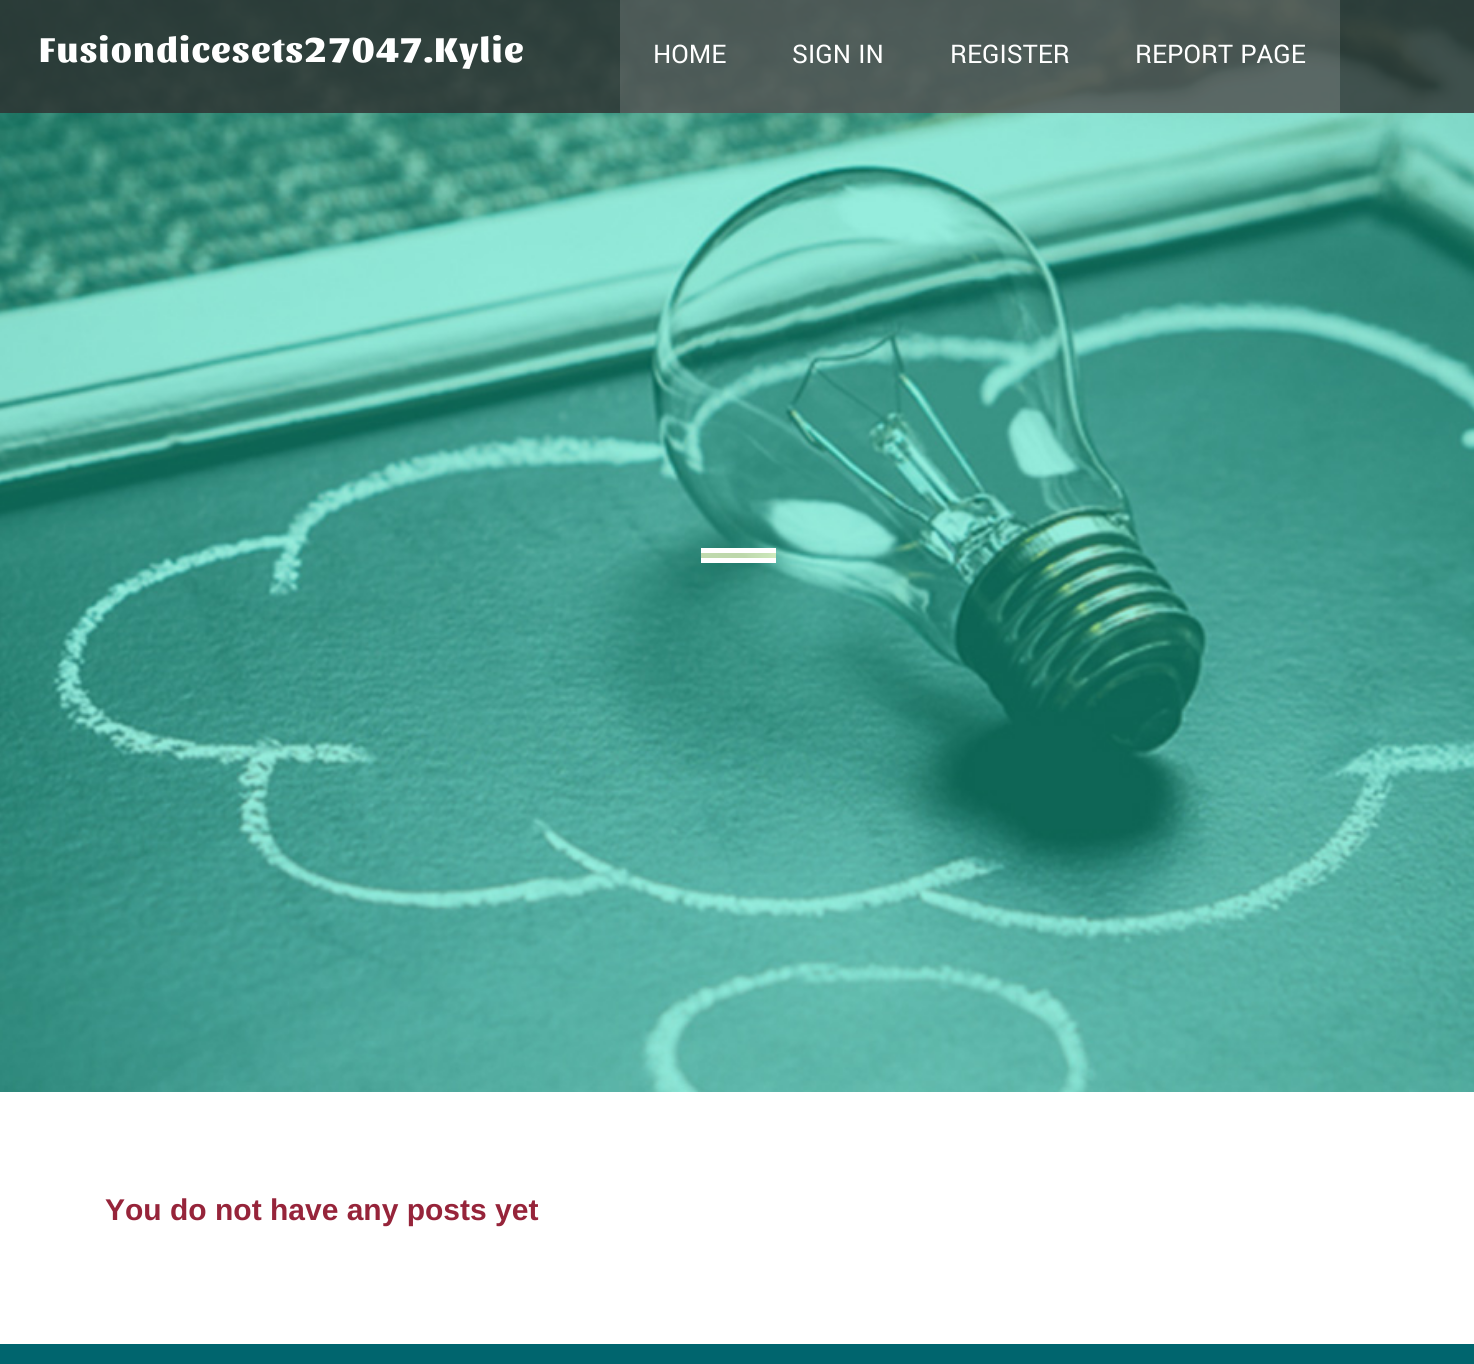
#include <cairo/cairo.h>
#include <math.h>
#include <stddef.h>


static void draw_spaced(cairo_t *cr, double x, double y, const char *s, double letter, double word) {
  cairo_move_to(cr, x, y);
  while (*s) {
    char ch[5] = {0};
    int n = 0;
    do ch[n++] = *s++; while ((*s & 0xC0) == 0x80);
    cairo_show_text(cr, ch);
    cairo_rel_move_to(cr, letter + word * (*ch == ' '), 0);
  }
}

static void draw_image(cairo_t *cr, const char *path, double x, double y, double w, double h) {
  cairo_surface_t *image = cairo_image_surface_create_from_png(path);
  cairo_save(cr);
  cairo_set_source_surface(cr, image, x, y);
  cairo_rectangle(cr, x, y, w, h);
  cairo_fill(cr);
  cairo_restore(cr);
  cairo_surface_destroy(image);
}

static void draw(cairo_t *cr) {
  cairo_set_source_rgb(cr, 1, 1, 1);
  cairo_paint(cr);
  draw_image(cr, "images/1.png", 0, 0, 1474, 1092);
  cairo_set_source_rgba(cr, 47 / 255.0, 47 / 255.0, 47 / 255.0, 0.8);
  cairo_rectangle(cr, 0, 0, 1474, 113);
  cairo_fill(cr);
  cairo_set_source_rgba(cr, 199 / 255.0, 199 / 255.0, 199 / 255.0, 0.2);
  cairo_rectangle(cr, 620, 0, 139, 113);
  cairo_fill(cr);
  cairo_rectangle(cr, 759, 0, 158, 113);
  cairo_fill(cr);
  cairo_rectangle(cr, 917, 0, 186, 113);
  cairo_fill(cr);
  cairo_rectangle(cr, 1103, 0, 237, 113);
  cairo_fill(cr);
  cairo_set_source_rgba(cr, 1, 1, 199 / 255.0, 0.7);
  cairo_rectangle(cr, 701, 553, 75, 5);
  cairo_fill(cr);
  cairo_set_source_rgb(cr, 1, 1, 1);
  cairo_rectangle(cr, 701, 548, 75, 5);
  cairo_fill(cr);
  cairo_rectangle(cr, 701, 558, 75, 5);
  cairo_fill(cr);
  cairo_set_source_rgb(cr, 0, 101 / 255.0, 110 / 255.0);
  cairo_rectangle(cr, 0, 1344, 1474, 20);
  cairo_fill(cr);
  cairo_select_font_face(cr, "Sansita ExtraBold", CAIRO_FONT_SLANT_NORMAL, CAIRO_FONT_WEIGHT_NORMAL);
  cairo_set_font_size(cr, 36);
  cairo_set_source_rgb(cr, 1, 1, 1);
  draw_spaced(cr, 39, 62, "Fusiondicesets27047.Kylie", 1.5, 0);
  cairo_select_font_face(cr, "Yantramanav", CAIRO_FONT_SLANT_NORMAL, CAIRO_FONT_WEIGHT_NORMAL);
  cairo_set_font_size(cr, 28.5);
  cairo_move_to(cr, 653, 63);
  cairo_show_text(cr, "HOME");
  cairo_move_to(cr, 792, 63);
  cairo_show_text(cr, "SIGN IN");
  cairo_move_to(cr, 950, 63);
  cairo_show_text(cr, "REGISTER");
  cairo_move_to(cr, 1135, 63);
  cairo_show_text(cr, "REPORT PAGE");
  cairo_select_font_face(cr, "Liberation Sans", CAIRO_FONT_SLANT_NORMAL, CAIRO_FONT_WEIGHT_BOLD);
  cairo_set_font_size(cr, 30);
  cairo_set_source_rgb(cr, 150 / 255.0, 36 / 255.0, 58 / 255.0);
  cairo_move_to(cr, 105, 1220);
  cairo_show_text(cr, "You do not have any posts yet");
}

int main(void) {
  cairo_surface_t *surface = cairo_image_surface_create(CAIRO_FORMAT_RGB24, 1474, 1364);
  cairo_t *cr = cairo_create(surface);
  cairo_font_options_t *options = cairo_font_options_create();
  cairo_font_options_set_hint_metrics(options, CAIRO_HINT_METRICS_OFF);
  cairo_font_options_set_hint_style(options, CAIRO_HINT_STYLE_NONE);
  cairo_set_font_options(cr, options);
  cairo_set_miter_limit(cr, 4);
  draw(cr);
  cairo_surface_write_to_png(surface, "out.png");
  cairo_font_options_destroy(options);
  cairo_destroy(cr);
  cairo_surface_destroy(surface);
  return 0;
}
